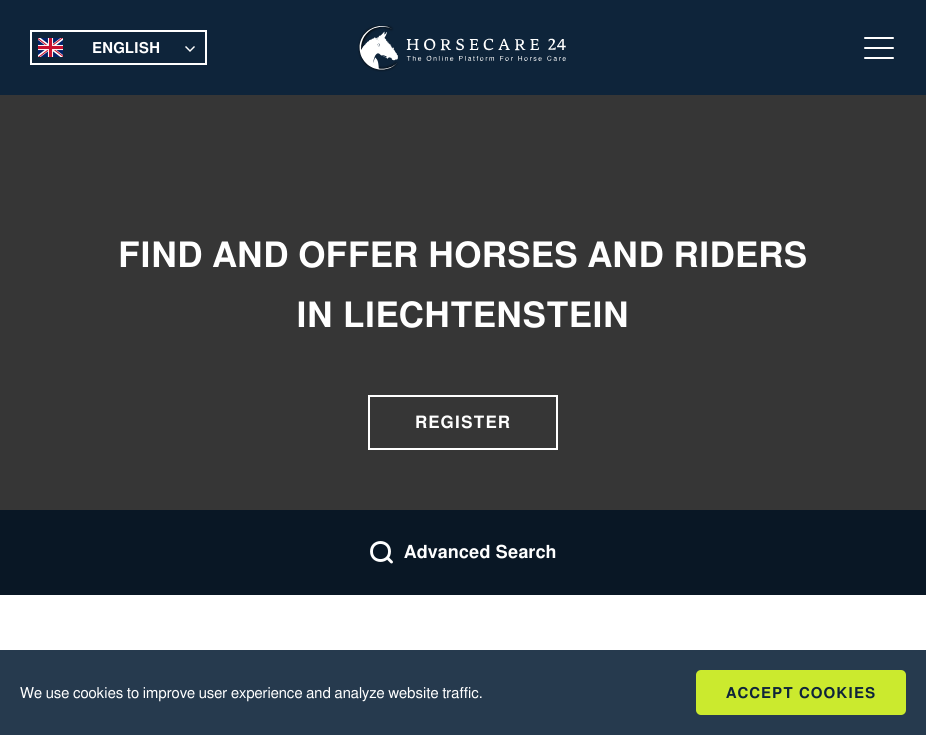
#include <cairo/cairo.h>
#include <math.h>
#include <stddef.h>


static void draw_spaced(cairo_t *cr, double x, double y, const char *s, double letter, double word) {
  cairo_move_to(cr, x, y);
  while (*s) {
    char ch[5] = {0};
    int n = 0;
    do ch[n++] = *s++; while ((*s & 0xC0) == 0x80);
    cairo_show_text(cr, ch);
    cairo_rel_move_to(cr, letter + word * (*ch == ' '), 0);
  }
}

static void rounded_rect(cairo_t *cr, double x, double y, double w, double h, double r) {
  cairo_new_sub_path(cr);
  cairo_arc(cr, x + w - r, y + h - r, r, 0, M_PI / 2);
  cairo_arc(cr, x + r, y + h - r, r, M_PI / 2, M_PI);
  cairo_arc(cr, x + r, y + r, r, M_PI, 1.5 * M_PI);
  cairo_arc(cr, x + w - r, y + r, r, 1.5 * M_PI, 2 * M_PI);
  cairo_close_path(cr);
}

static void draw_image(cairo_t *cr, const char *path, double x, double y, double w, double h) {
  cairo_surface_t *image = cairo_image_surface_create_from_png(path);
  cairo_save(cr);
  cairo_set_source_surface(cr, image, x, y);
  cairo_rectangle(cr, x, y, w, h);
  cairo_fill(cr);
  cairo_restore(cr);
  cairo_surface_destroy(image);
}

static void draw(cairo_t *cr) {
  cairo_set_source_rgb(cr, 1, 1, 1);
  cairo_paint(cr);
  cairo_set_source_rgb(cr, 38 / 255.0, 58 / 255.0, 78 / 255.0);
  cairo_rectangle(cr, 0, 650, 926, 85);
  cairo_fill(cr);
  cairo_set_source_rgb(cr, 14 / 255.0, 36 / 255.0, 58 / 255.0);
  cairo_rectangle(cr, 0, 0, 926, 95);
  cairo_fill(cr);
  draw_image(cr, "images/1.png", 185, 46, 10, 6);
  draw_image(cr, "images/2.png", 38, 38, 25, 19);
  cairo_rectangle(cr, 31, 31, 175, 33);
  cairo_set_source_rgb(cr, 1, 1, 1);
  cairo_stroke(cr);
  draw_image(cr, "images/3.png", 358, 25, 208, 47);
  cairo_new_path(cr);
  cairo_move_to(cr, 865, 38);
  cairo_line_to(cr, 893, 38);
  cairo_move_to(cr, 865, 48);
  cairo_line_to(cr, 893, 48);
  cairo_move_to(cr, 865, 58);
  cairo_line_to(cr, 893, 58);
  cairo_set_line_cap(cr, CAIRO_LINE_CAP_ROUND);
  cairo_stroke(cr);
  cairo_set_source_rgb(cr, 54 / 255.0, 54 / 255.0, 54 / 255.0);
  cairo_rectangle(cr, 0, 95, 926, 415);
  cairo_fill(cr);
  cairo_rectangle(cr, 369, 396, 188, 53);
  cairo_set_source_rgb(cr, 1, 1, 1);
  cairo_set_line_cap(cr, CAIRO_LINE_CAP_BUTT);
  cairo_stroke(cr);
  cairo_set_source_rgb(cr, 9 / 255.0, 23 / 255.0, 37 / 255.0);
  cairo_rectangle(cr, 0, 510, 926, 85);
  cairo_fill(cr);
  cairo_new_path(cr);
  cairo_move_to(cr, 389.5, 551.5);
  cairo_curve_to(cr, 389.5, 563.5, 371.5, 563.5, 371.5, 551.5);
  cairo_curve_to(cr, 371.5, 539.5, 389.5, 539.5, 389.5, 551.5);
  cairo_close_path(cr);
  cairo_move_to(cr, 391.5, 562);
  cairo_line_to(cr, 386.5, 557);
  cairo_line_to(cr, 391.5, 562);
  cairo_set_source_rgb(cr, 1, 1, 1);
  cairo_set_line_width(cr, 2.9);
  cairo_set_line_cap(cr, CAIRO_LINE_CAP_ROUND);
  cairo_stroke(cr);
  cairo_set_source_rgb(cr, 203 / 255.0, 234 / 255.0, 46 / 255.0);
  rounded_rect(cr, 696, 670, 210, 45, 5);
  cairo_fill(cr);
  cairo_select_font_face(cr, "FreeSans", CAIRO_FONT_SLANT_NORMAL, CAIRO_FONT_WEIGHT_BOLD);
  cairo_set_font_size(cr, 15);
  cairo_set_source_rgb(cr, 1, 1, 1);
  cairo_move_to(cr, 92, 53);
  cairo_show_text(cr, "ENGLISH");
  cairo_set_font_size(cr, 35);
  cairo_move_to(cr, 118, 267);
  cairo_show_text(cr, "FIND AND OFFER HORSES AND RIDERS");
  cairo_move_to(cr, 296, 327);
  cairo_show_text(cr, "IN LIECHTENSTEIN");
  cairo_set_font_size(cr, 17);
  draw_spaced(cr, 415, 428, "REGISTER", 1, 0);
  cairo_set_font_size(cr, 18);
  cairo_move_to(cr, 404, 558);
  cairo_show_text(cr, "Advanced Search");
  cairo_select_font_face(cr, "FreeSans", CAIRO_FONT_SLANT_NORMAL, CAIRO_FONT_WEIGHT_NORMAL);
  cairo_set_font_size(cr, 15);
  cairo_move_to(cr, 20, 698);
  cairo_show_text(cr, "We use cookies to improve user experience and analyze website traffic.");
  cairo_select_font_face(cr, "FreeSans", CAIRO_FONT_SLANT_NORMAL, CAIRO_FONT_WEIGHT_BOLD);
  cairo_set_source_rgb(cr, 14 / 255.0, 36 / 255.0, 58 / 255.0);
  draw_spaced(cr, 726, 698, "ACCEPT COOKIES", 1, 0);
}

int main(void) {
  cairo_surface_t *surface = cairo_image_surface_create(CAIRO_FORMAT_RGB24, 926, 735);
  cairo_t *cr = cairo_create(surface);
  cairo_font_options_t *options = cairo_font_options_create();
  cairo_font_options_set_hint_metrics(options, CAIRO_HINT_METRICS_OFF);
  cairo_font_options_set_hint_style(options, CAIRO_HINT_STYLE_NONE);
  cairo_set_font_options(cr, options);
  cairo_set_miter_limit(cr, 4);
  draw(cr);
  cairo_surface_write_to_png(surface, "out.png");
  cairo_font_options_destroy(options);
  cairo_destroy(cr);
  cairo_surface_destroy(surface);
  return 0;
}
